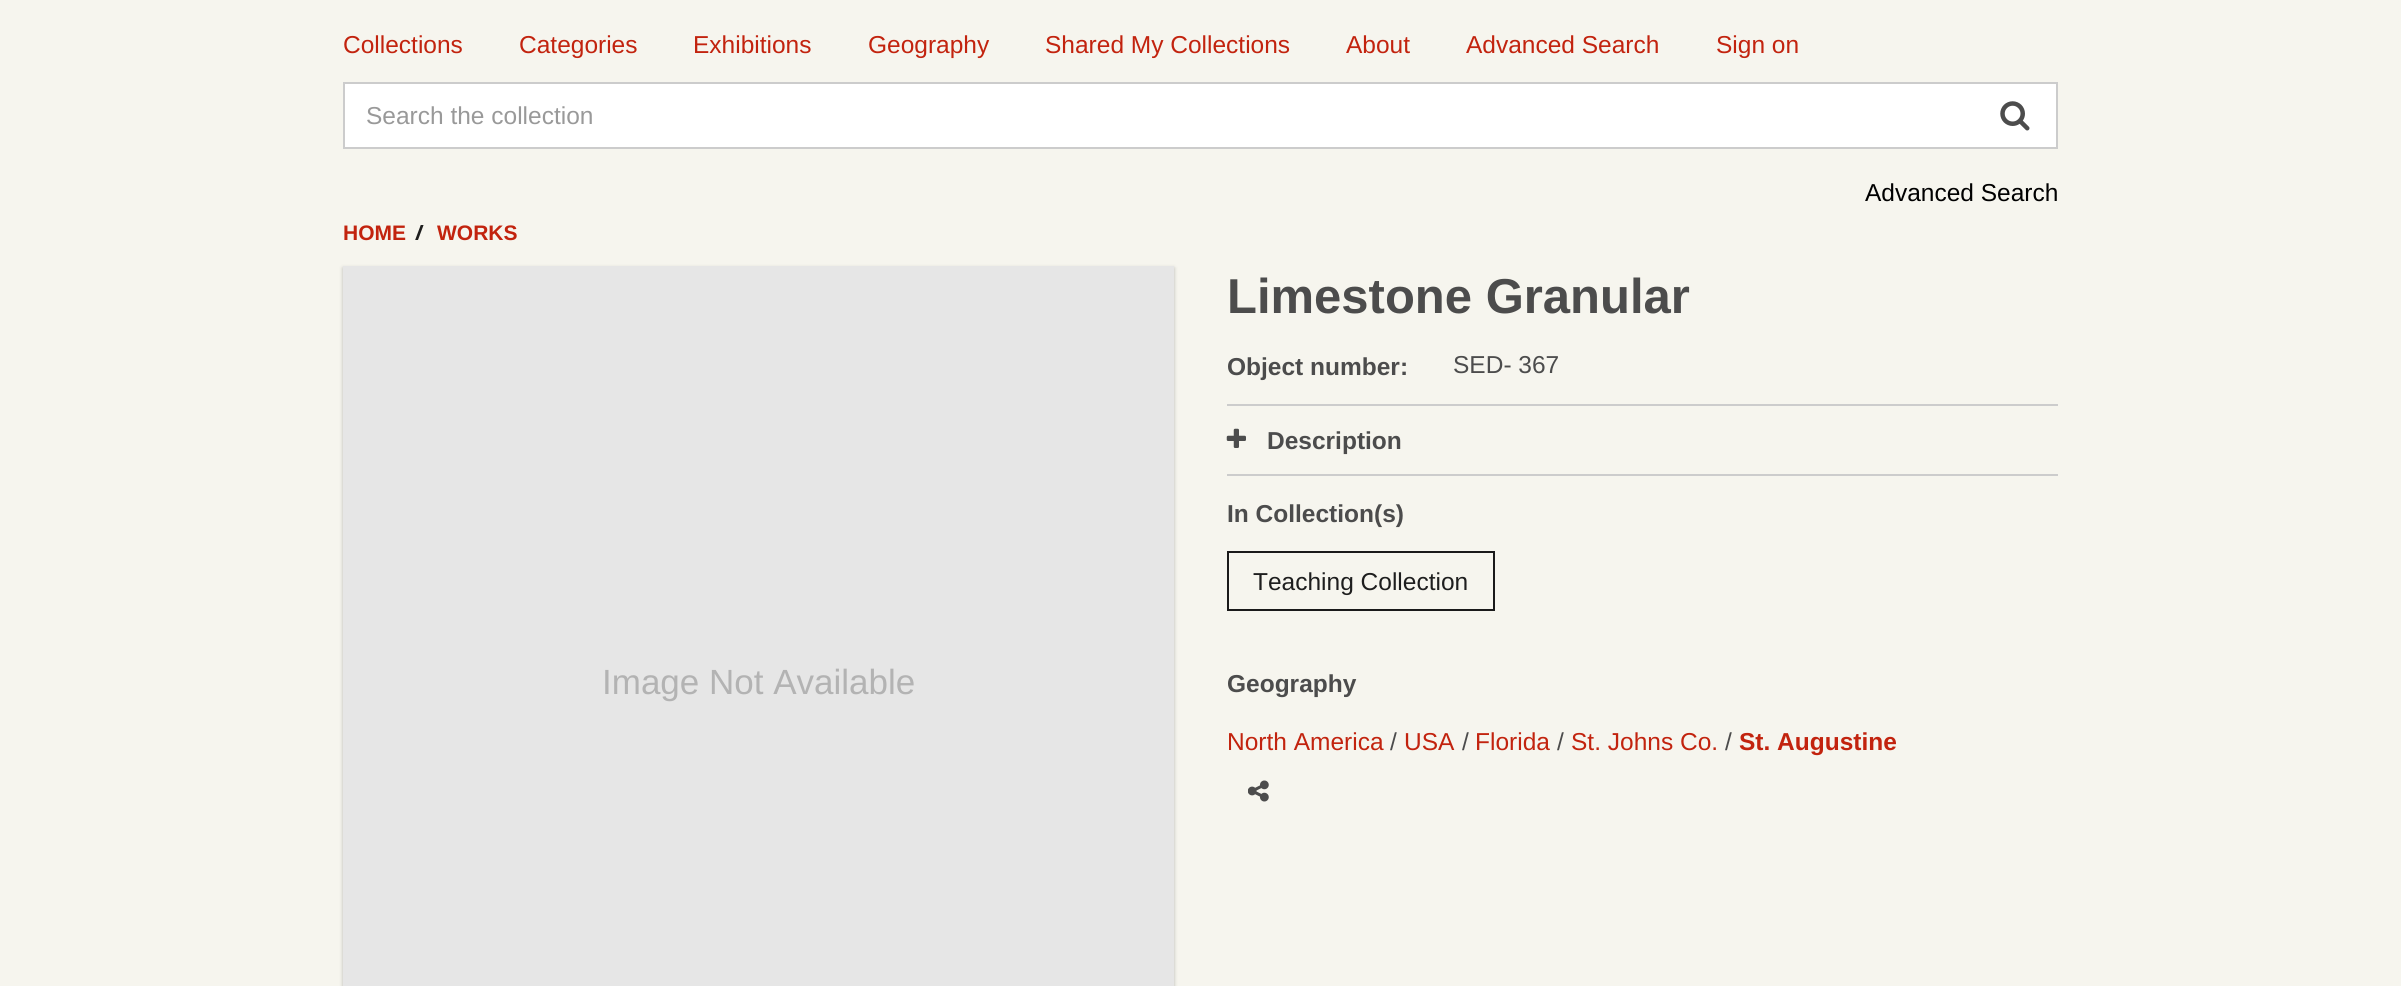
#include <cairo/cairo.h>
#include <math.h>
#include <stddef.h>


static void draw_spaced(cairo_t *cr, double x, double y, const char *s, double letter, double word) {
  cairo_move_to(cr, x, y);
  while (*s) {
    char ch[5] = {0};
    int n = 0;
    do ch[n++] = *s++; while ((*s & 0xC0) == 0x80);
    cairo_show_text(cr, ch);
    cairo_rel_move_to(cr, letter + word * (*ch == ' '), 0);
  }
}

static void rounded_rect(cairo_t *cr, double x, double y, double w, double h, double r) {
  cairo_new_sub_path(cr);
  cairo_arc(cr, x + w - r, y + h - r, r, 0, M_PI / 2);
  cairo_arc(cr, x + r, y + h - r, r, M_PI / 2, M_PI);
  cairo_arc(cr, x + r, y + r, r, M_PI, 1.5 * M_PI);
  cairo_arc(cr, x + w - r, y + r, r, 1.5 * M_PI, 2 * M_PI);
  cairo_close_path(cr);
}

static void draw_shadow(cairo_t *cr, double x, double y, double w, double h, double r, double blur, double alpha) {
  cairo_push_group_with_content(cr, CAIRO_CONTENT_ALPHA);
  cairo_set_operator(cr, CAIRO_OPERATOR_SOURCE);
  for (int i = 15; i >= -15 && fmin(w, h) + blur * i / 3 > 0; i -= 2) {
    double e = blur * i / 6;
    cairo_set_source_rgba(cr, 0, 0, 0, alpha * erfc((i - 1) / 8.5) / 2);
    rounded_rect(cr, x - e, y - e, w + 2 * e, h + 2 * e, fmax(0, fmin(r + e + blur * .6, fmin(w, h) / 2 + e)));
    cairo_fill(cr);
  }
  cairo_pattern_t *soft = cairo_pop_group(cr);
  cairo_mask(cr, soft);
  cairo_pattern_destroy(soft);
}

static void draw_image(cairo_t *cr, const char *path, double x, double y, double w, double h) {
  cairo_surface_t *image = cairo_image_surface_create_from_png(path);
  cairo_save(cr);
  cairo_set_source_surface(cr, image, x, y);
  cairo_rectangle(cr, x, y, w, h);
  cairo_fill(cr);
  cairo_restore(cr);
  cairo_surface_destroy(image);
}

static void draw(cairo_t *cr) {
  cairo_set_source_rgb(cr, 246 / 255.0, 245 / 255.0, 238 / 255.0);
  cairo_paint(cr);
  cairo_set_source_rgb(cr, 1, 1, 1);
  cairo_rectangle(cr, 344, 83, 1713, 65);
  cairo_fill_preserve(cr);
  cairo_set_source_rgb(cr, 204 / 255.0, 204 / 255.0, 204 / 255.0);
  cairo_stroke(cr);
  draw_image(cr, "images/1.png", 2000, 101, 30, 30);
  cairo_set_source_rgb(cr, 0, 0, 0);
  draw_shadow(cr, 343, 268, 831, 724, 0, 2, 0.25);
  cairo_set_source_rgb(cr, 230 / 255.0, 230 / 255.0, 230 / 255.0);
  cairo_rectangle(cr, 343, 266, 831, 720);
  cairo_fill(cr);
  cairo_set_source_rgb(cr, 204 / 255.0, 204 / 255.0, 204 / 255.0);
  cairo_rectangle(cr, 1227, 404, 831, 2);
  cairo_fill(cr);
  cairo_rectangle(cr, 1227, 474, 831, 2);
  cairo_fill(cr);
  draw_image(cr, "images/2.png", 1226, 428, 20, 20);
  cairo_rectangle(cr, 1228, 552, 266, 58);
  cairo_set_source_rgb(cr, 26 / 255.0, 26 / 255.0, 26 / 255.0);
  cairo_stroke(cr);
  draw_image(cr, "images/3.png", 1248, 780, 21, 22);
  cairo_select_font_face(cr, "Liberation Sans", CAIRO_FONT_SLANT_NORMAL, CAIRO_FONT_WEIGHT_NORMAL);
  cairo_set_font_size(cr, 24.5);
  cairo_set_source_rgb(cr, 194 / 255.0, 35 / 255.0, 14 / 255.0);
  cairo_move_to(cr, 343, 53);
  cairo_show_text(cr, "Collections");
  cairo_move_to(cr, 519, 53);
  cairo_show_text(cr, "Categories");
  cairo_move_to(cr, 693, 53);
  cairo_show_text(cr, "Exhibitions");
  cairo_move_to(cr, 868, 53);
  cairo_show_text(cr, "Geography");
  cairo_move_to(cr, 1045, 53);
  cairo_show_text(cr, "Shared My Collections");
  cairo_move_to(cr, 1346, 53);
  cairo_show_text(cr, "About");
  cairo_move_to(cr, 1466, 53);
  cairo_show_text(cr, "Advanced Search");
  cairo_move_to(cr, 1716, 53);
  cairo_show_text(cr, "Sign on");
  cairo_set_source_rgb(cr, 153 / 255.0, 153 / 255.0, 153 / 255.0);
  cairo_move_to(cr, 366, 124);
  cairo_show_text(cr, "Search the collection");
  cairo_set_source_rgb(cr, 0, 0, 0);
  cairo_move_to(cr, 1865, 201);
  cairo_show_text(cr, "Advanced Search");
  cairo_select_font_face(cr, "Liberation Sans", CAIRO_FONT_SLANT_NORMAL, CAIRO_FONT_WEIGHT_BOLD);
  cairo_set_font_size(cr, 21);
  cairo_set_source_rgb(cr, 194 / 255.0, 35 / 255.0, 14 / 255.0);
  cairo_move_to(cr, 343, 240);
  cairo_show_text(cr, "HOME");
  cairo_select_font_face(cr, "Open Sans", CAIRO_FONT_SLANT_NORMAL, CAIRO_FONT_WEIGHT_BOLD);
  cairo_set_source_rgb(cr, 30 / 255.0, 30 / 255.0, 30 / 255.0);
  draw_spaced(cr, 415, 240, "/", 2, 0);
  cairo_select_font_face(cr, "Liberation Sans", CAIRO_FONT_SLANT_NORMAL, CAIRO_FONT_WEIGHT_BOLD);
  cairo_set_source_rgb(cr, 194 / 255.0, 35 / 255.0, 14 / 255.0);
  cairo_move_to(cr, 437, 240);
  cairo_show_text(cr, "WORKS");
  cairo_select_font_face(cr, "Liberation Sans", CAIRO_FONT_SLANT_NORMAL, CAIRO_FONT_WEIGHT_NORMAL);
  cairo_set_font_size(cr, 35);
  cairo_set_source_rgb(cr, 179 / 255.0, 179 / 255.0, 179 / 255.0);
  cairo_move_to(cr, 602, 694);
  cairo_show_text(cr, "Image Not Available");
  cairo_select_font_face(cr, "Liberation Sans", CAIRO_FONT_SLANT_NORMAL, CAIRO_FONT_WEIGHT_BOLD);
  cairo_set_font_size(cr, 49);
  cairo_set_source_rgb(cr, 76 / 255.0, 76 / 255.0, 76 / 255.0);
  cairo_move_to(cr, 1227, 313);
  cairo_show_text(cr, "Limestone Granular");
  cairo_set_font_size(cr, 24.5);
  cairo_move_to(cr, 1227, 375);
  cairo_show_text(cr, "Object number:");
  cairo_select_font_face(cr, "Liberation Sans", CAIRO_FONT_SLANT_NORMAL, CAIRO_FONT_WEIGHT_NORMAL);
  cairo_move_to(cr, 1453, 373);
  cairo_show_text(cr, "SED- 367");
  cairo_select_font_face(cr, "Liberation Sans", CAIRO_FONT_SLANT_NORMAL, CAIRO_FONT_WEIGHT_BOLD);
  cairo_move_to(cr, 1267, 449);
  cairo_show_text(cr, "Description");
  cairo_move_to(cr, 1227, 522);
  cairo_show_text(cr, "In Collection(s)");
  cairo_select_font_face(cr, "Liberation Sans", CAIRO_FONT_SLANT_NORMAL, CAIRO_FONT_WEIGHT_NORMAL);
  cairo_set_source_rgb(cr, 30 / 255.0, 30 / 255.0, 30 / 255.0);
  cairo_move_to(cr, 1253, 590);
  cairo_show_text(cr, "Teaching Collection");
  cairo_select_font_face(cr, "Liberation Sans", CAIRO_FONT_SLANT_NORMAL, CAIRO_FONT_WEIGHT_BOLD);
  cairo_set_source_rgb(cr, 76 / 255.0, 76 / 255.0, 76 / 255.0);
  cairo_move_to(cr, 1227, 692);
  cairo_show_text(cr, "Geography");
  cairo_select_font_face(cr, "Liberation Sans", CAIRO_FONT_SLANT_NORMAL, CAIRO_FONT_WEIGHT_NORMAL);
  cairo_set_source_rgb(cr, 194 / 255.0, 35 / 255.0, 14 / 255.0);
  cairo_move_to(cr, 1227, 750);
  cairo_show_text(cr, "North America");
  cairo_set_source_rgb(cr, 76 / 255.0, 76 / 255.0, 76 / 255.0);
  cairo_move_to(cr, 1390, 750);
  cairo_show_text(cr, "/");
  cairo_set_source_rgb(cr, 194 / 255.0, 35 / 255.0, 14 / 255.0);
  cairo_move_to(cr, 1404, 750);
  cairo_show_text(cr, "USA");
  cairo_set_source_rgb(cr, 76 / 255.0, 76 / 255.0, 76 / 255.0);
  cairo_move_to(cr, 1462, 750);
  cairo_show_text(cr, "/");
  cairo_set_source_rgb(cr, 194 / 255.0, 35 / 255.0, 14 / 255.0);
  cairo_move_to(cr, 1475, 750);
  cairo_show_text(cr, "Florida");
  cairo_set_source_rgb(cr, 76 / 255.0, 76 / 255.0, 76 / 255.0);
  cairo_move_to(cr, 1557, 750);
  cairo_show_text(cr, "/");
  cairo_set_source_rgb(cr, 194 / 255.0, 35 / 255.0, 14 / 255.0);
  cairo_move_to(cr, 1571, 750);
  cairo_show_text(cr, "St. Johns Co.");
  cairo_set_source_rgb(cr, 76 / 255.0, 76 / 255.0, 76 / 255.0);
  cairo_move_to(cr, 1725, 750);
  cairo_show_text(cr, "/");
  cairo_select_font_face(cr, "Liberation Sans", CAIRO_FONT_SLANT_NORMAL, CAIRO_FONT_WEIGHT_BOLD);
  cairo_set_source_rgb(cr, 194 / 255.0, 35 / 255.0, 14 / 255.0);
  cairo_move_to(cr, 1739, 750);
  cairo_show_text(cr, "St. Augustine");
}

int main(void) {
  cairo_surface_t *surface = cairo_image_surface_create(CAIRO_FORMAT_RGB24, 2401, 986);
  cairo_t *cr = cairo_create(surface);
  cairo_font_options_t *options = cairo_font_options_create();
  cairo_font_options_set_hint_metrics(options, CAIRO_HINT_METRICS_OFF);
  cairo_font_options_set_hint_style(options, CAIRO_HINT_STYLE_NONE);
  cairo_set_font_options(cr, options);
  cairo_set_miter_limit(cr, 4);
  draw(cr);
  cairo_surface_write_to_png(surface, "out.png");
  cairo_font_options_destroy(options);
  cairo_destroy(cr);
  cairo_surface_destroy(surface);
  return 0;
}
